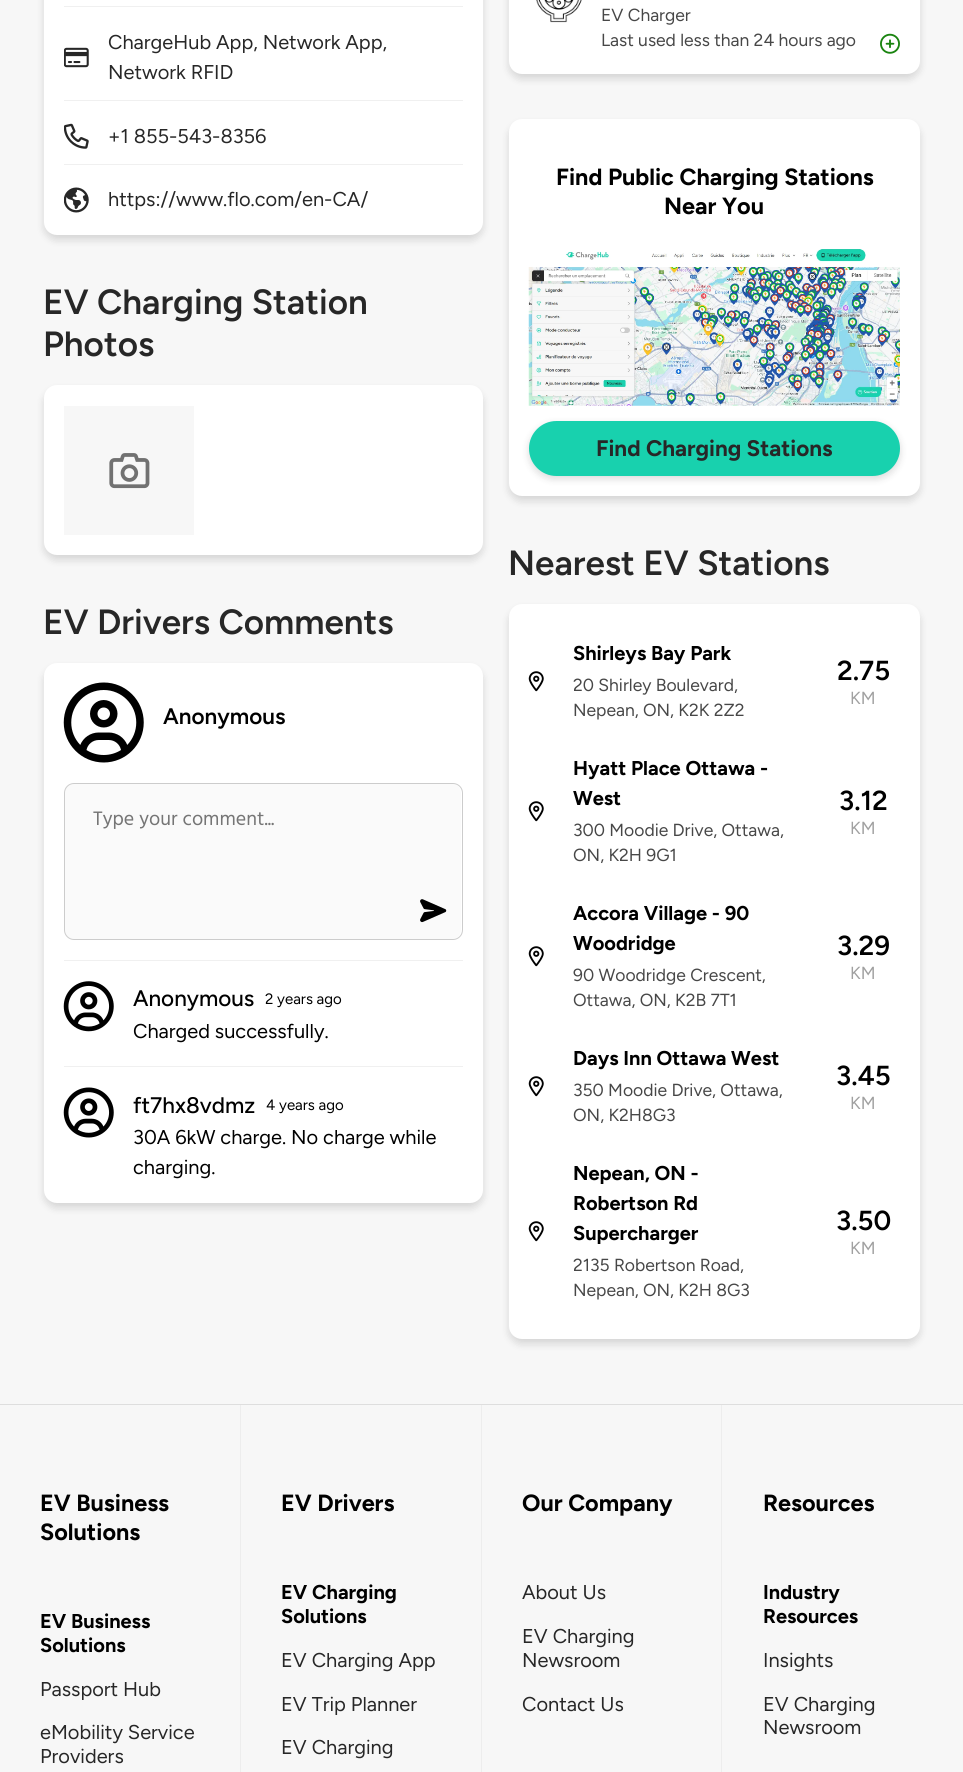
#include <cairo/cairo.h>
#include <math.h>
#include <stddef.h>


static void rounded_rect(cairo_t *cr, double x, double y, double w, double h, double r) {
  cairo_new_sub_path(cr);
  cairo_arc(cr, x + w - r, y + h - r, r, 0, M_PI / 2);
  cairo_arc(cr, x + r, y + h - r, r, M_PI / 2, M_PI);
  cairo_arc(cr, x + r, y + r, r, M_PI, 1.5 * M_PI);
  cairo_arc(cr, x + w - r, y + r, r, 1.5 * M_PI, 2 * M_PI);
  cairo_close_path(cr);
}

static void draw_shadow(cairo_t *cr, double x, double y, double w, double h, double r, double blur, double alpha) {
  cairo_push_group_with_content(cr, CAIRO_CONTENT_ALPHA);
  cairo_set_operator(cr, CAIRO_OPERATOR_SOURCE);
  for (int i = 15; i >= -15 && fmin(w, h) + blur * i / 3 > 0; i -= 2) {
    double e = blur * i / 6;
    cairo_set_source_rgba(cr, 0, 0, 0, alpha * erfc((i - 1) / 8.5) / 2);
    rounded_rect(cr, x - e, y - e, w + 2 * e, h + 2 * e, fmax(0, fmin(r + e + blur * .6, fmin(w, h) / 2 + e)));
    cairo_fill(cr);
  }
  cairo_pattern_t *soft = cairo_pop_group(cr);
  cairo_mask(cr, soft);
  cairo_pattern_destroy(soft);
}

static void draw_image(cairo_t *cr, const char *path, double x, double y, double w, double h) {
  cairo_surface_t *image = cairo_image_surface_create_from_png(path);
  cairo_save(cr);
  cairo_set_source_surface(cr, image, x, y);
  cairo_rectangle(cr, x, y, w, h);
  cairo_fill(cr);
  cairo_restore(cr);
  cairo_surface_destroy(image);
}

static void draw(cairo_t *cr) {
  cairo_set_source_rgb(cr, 247 / 255.0, 247 / 255.0, 247 / 255.0);
  cairo_paint(cr);
  cairo_set_source_rgb(cr, 36 / 255.0, 36 / 255.0, 36 / 255.0);
  draw_shadow(cr, 44, -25, 439, 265, 13, 4, 0.16);
  cairo_set_source_rgb(cr, 1, 1, 1);
  rounded_rect(cr, 44, -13, 439, 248, 13);
  cairo_fill(cr);
  cairo_set_source_rgb(cr, 240 / 255.0, 240 / 255.0, 240 / 255.0);
  cairo_rectangle(cr, 64, 6, 399, 1);
  cairo_fill(cr);
  cairo_rectangle(cr, 64, 100, 399, 1);
  cairo_fill(cr);
  draw_image(cr, "images/1.png", 64, 47, 25, 21);
  cairo_rectangle(cr, 64, 164, 399, 1);
  cairo_fill(cr);
  draw_image(cr, "images/2.png", 64, 123, 25, 26);
  draw_image(cr, "images/3.png", 64, 187, 25, 26);
  cairo_set_source_rgb(cr, 36 / 255.0, 36 / 255.0, 36 / 255.0);
  draw_shadow(cr, 44, 390, 439, 170, 13, 4, 0.16);
  cairo_set_source_rgb(cr, 1, 1, 1);
  rounded_rect(cr, 44, 385, 439, 170, 13);
  cairo_fill(cr);
  draw_image(cr, "images/4.png", 64, 406, 130, 129);
  cairo_set_source_rgb(cr, 36 / 255.0, 36 / 255.0, 36 / 255.0);
  draw_shadow(cr, 44, 668, 439, 540, 13, 4, 0.16);
  cairo_set_source_rgb(cr, 1, 1, 1);
  rounded_rect(cr, 44, 663, 439, 540, 13);
  cairo_fill(cr);
  cairo_set_source_rgb(cr, 240 / 255.0, 240 / 255.0, 240 / 255.0);
  cairo_rectangle(cr, 64, 960, 399, 1);
  cairo_fill(cr);
  draw_image(cr, "images/5.png", 63, 682, 81, 81);
  cairo_set_source_rgb(cr, 250 / 255.0, 250 / 255.0, 250 / 255.0);
  rounded_rect(cr, 65, 784, 396, 155, 9);
  cairo_fill(cr);
  rounded_rect(cr, 64.5, 783.5, 398, 156, 9.5);
  cairo_set_source_rgb(cr, 204 / 255.0, 204 / 255.0, 204 / 255.0);
  cairo_set_line_width(cr, 1);
  cairo_stroke(cr);
  draw_image(cr, "images/6.png", 420, 899, 27, 24);
  cairo_set_source_rgb(cr, 240 / 255.0, 240 / 255.0, 240 / 255.0);
  cairo_rectangle(cr, 64, 1066, 399, 1);
  cairo_fill(cr);
  draw_image(cr, "images/7.png", 63, 981, 51, 51);
  draw_image(cr, "images/8.png", 63, 1087, 51, 51);
  cairo_set_source_rgb(cr, 36 / 255.0, 36 / 255.0, 36 / 255.0);
  draw_shadow(cr, 509, -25, 411, 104, 13, 4, 0.16);
  cairo_set_source_rgb(cr, 1, 1, 1);
  rounded_rect(cr, 509, -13, 411, 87, 13);
  cairo_fill(cr);
  draw_image(cr, "images/9.png", 536, 0, 46, 23);
  draw_image(cr, "images/10.png", 880, 33, 20, 21);
  cairo_set_source_rgb(cr, 36 / 255.0, 36 / 255.0, 36 / 255.0);
  draw_shadow(cr, 509, 124, 411, 377, 13, 4, 0.16);
  cairo_set_source_rgb(cr, 1, 1, 1);
  rounded_rect(cr, 509, 119, 411, 377, 13);
  cairo_fill(cr);
  draw_image(cr, "images/11.png", 528, 249, 372, 157);
  cairo_set_source_rgb(cr, 27 / 255.0, 27 / 255.0, 27 / 255.0);
  draw_shadow(cr, 529, 424, 371, 55, 27.5, 4, 0.16);
  cairo_set_source_rgb(cr, 24 / 255.0, 209 / 255.0, 174 / 255.0);
  rounded_rect(cr, 529, 421, 371, 55, 27.5);
  cairo_fill(cr);
  cairo_set_source_rgb(cr, 36 / 255.0, 36 / 255.0, 36 / 255.0);
  draw_shadow(cr, 509, 609, 411, 735, 13, 4, 0.16);
  cairo_set_source_rgb(cr, 1, 1, 1);
  rounded_rect(cr, 509, 604, 411, 735, 13);
  cairo_fill(cr);
  draw_image(cr, "images/12.png", 528, 671, 16, 21);
  draw_image(cr, "images/12.png", 528, 801, 16, 21);
  draw_image(cr, "images/12.png", 528, 946, 16, 21);
  draw_image(cr, "images/12.png", 528, 1076, 16, 21);
  draw_image(cr, "images/12.png", 528, 1221, 16, 21);
  cairo_set_source_rgb(cr, 222 / 255.0, 222 / 255.0, 222 / 255.0);
  cairo_rectangle(cr, 0, 1404, 963, 1);
  cairo_fill(cr);
  cairo_set_source_rgb(cr, 237 / 255.0, 237 / 255.0, 237 / 255.0);
  cairo_rectangle(cr, 240, 1405, 1, 367);
  cairo_fill(cr);
  cairo_rectangle(cr, 481, 1405, 1, 367);
  cairo_fill(cr);
  cairo_rectangle(cr, 721, 1405, 1, 367);
  cairo_fill(cr);
  cairo_select_font_face(cr, "Figtree", CAIRO_FONT_SLANT_NORMAL, CAIRO_FONT_WEIGHT_NORMAL);
  cairo_set_font_size(cr, 20);
  cairo_set_source_rgb(cr, 39 / 255.0, 39 / 255.0, 39 / 255.0);
  cairo_move_to(cr, 108, 49);
  cairo_show_text(cr, "ChargeHub App, Network App,");
  cairo_move_to(cr, 108, 79);
  cairo_show_text(cr, "Network RFID");
  cairo_move_to(cr, 108, 143);
  cairo_show_text(cr, "+1 855-543-8356");
  cairo_move_to(cr, 108, 206);
  cairo_show_text(cr, "https://www.flo.com/en-CA/");
  cairo_select_font_face(cr, "Figtree SemiBold", CAIRO_FONT_SLANT_NORMAL, CAIRO_FONT_WEIGHT_NORMAL);
  cairo_set_font_size(cr, 35);
  cairo_move_to(cr, 43, 314);
  cairo_show_text(cr, "EV Charging Station");
  cairo_move_to(cr, 43, 356);
  cairo_show_text(cr, "Photos");
  cairo_move_to(cr, 43, 634);
  cairo_show_text(cr, "EV Drivers Comments");
  cairo_set_font_size(cr, 22.5);
  cairo_set_source_rgb(cr, 0, 0, 0);
  cairo_move_to(cr, 163, 724);
  cairo_show_text(cr, "Anonymous");
  cairo_select_font_face(cr, "Hind", CAIRO_FONT_SLANT_NORMAL, CAIRO_FONT_WEIGHT_NORMAL);
  cairo_set_font_size(cr, 20);
  cairo_set_source_rgb(cr, 117 / 255.0, 117 / 255.0, 117 / 255.0);
  cairo_move_to(cr, 93, 825);
  cairo_show_text(cr, "Type your comment...");
  cairo_select_font_face(cr, "Figtree Medium", CAIRO_FONT_SLANT_NORMAL, CAIRO_FONT_WEIGHT_NORMAL);
  cairo_set_font_size(cr, 22.5);
  cairo_set_source_rgb(cr, 0, 0, 0);
  cairo_move_to(cr, 133, 1006);
  cairo_show_text(cr, "Anonymous");
  cairo_select_font_face(cr, "Figtree", CAIRO_FONT_SLANT_NORMAL, CAIRO_FONT_WEIGHT_NORMAL);
  cairo_set_font_size(cr, 15);
  cairo_move_to(cr, 265, 1004);
  cairo_show_text(cr, "2 years ago");
  cairo_set_font_size(cr, 20);
  cairo_move_to(cr, 133, 1038);
  cairo_show_text(cr, "Charged successfully.");
  cairo_select_font_face(cr, "Figtree Medium", CAIRO_FONT_SLANT_NORMAL, CAIRO_FONT_WEIGHT_NORMAL);
  cairo_set_font_size(cr, 22.5);
  cairo_move_to(cr, 133, 1113);
  cairo_show_text(cr, "ft7hx8vdmz");
  cairo_select_font_face(cr, "Figtree", CAIRO_FONT_SLANT_NORMAL, CAIRO_FONT_WEIGHT_NORMAL);
  cairo_set_font_size(cr, 15);
  cairo_move_to(cr, 266, 1110);
  cairo_show_text(cr, "4 years ago");
  cairo_set_font_size(cr, 20);
  cairo_move_to(cr, 133, 1144);
  cairo_show_text(cr, "30A 6kW charge. No charge while");
  cairo_move_to(cr, 133, 1174);
  cairo_show_text(cr, "charging.");
  cairo_set_font_size(cr, 17.5);
  cairo_set_source_rgb(cr, 71 / 255.0, 71 / 255.0, 71 / 255.0);
  cairo_move_to(cr, 601, 21);
  cairo_show_text(cr, "EV Charger");
  cairo_move_to(cr, 601, 46);
  cairo_show_text(cr, "Last used less than 24 hours ago");
  cairo_select_font_face(cr, "Figtree", CAIRO_FONT_SLANT_NORMAL, CAIRO_FONT_WEIGHT_BOLD);
  cairo_set_font_size(cr, 23.4);
  cairo_set_source_rgb(cr, 0, 0, 0);
  cairo_move_to(cr, 556, 185);
  cairo_show_text(cr, "Find Public Charging Stations");
  cairo_move_to(cr, 664, 214);
  cairo_show_text(cr, "Near You");
  cairo_set_font_size(cr, 22.5);
  cairo_set_source_rgb(cr, 39 / 255.0, 39 / 255.0, 39 / 255.0);
  cairo_move_to(cr, 596, 456);
  cairo_show_text(cr, "Find Charging Stations");
  cairo_select_font_face(cr, "Figtree SemiBold", CAIRO_FONT_SLANT_NORMAL, CAIRO_FONT_WEIGHT_NORMAL);
  cairo_set_font_size(cr, 35);
  cairo_move_to(cr, 508, 575);
  cairo_show_text(cr, "Nearest EV Stations");
  cairo_select_font_face(cr, "Figtree", CAIRO_FONT_SLANT_NORMAL, CAIRO_FONT_WEIGHT_BOLD);
  cairo_set_font_size(cr, 20);
  cairo_set_source_rgb(cr, 0, 0, 0);
  cairo_move_to(cr, 573, 660);
  cairo_show_text(cr, "Shirleys Bay Park");
  cairo_select_font_face(cr, "Figtree", CAIRO_FONT_SLANT_NORMAL, CAIRO_FONT_WEIGHT_NORMAL);
  cairo_set_font_size(cr, 17.5);
  cairo_set_source_rgb(cr, 71 / 255.0, 71 / 255.0, 71 / 255.0);
  cairo_move_to(cr, 573, 691);
  cairo_show_text(cr, "20 Shirley Boulevard,");
  cairo_move_to(cr, 573, 716);
  cairo_show_text(cr, "Nepean, ON, K2K 2Z2");
  cairo_select_font_face(cr, "Figtree SemiBold", CAIRO_FONT_SLANT_NORMAL, CAIRO_FONT_WEIGHT_NORMAL);
  cairo_set_font_size(cr, 27.5);
  cairo_set_source_rgb(cr, 0, 0, 0);
  cairo_move_to(cr, 837, 680);
  cairo_show_text(cr, "2.75");
  cairo_select_font_face(cr, "Figtree", CAIRO_FONT_SLANT_NORMAL, CAIRO_FONT_WEIGHT_NORMAL);
  cairo_set_font_size(cr, 17.5);
  cairo_set_source_rgb(cr, 160 / 255.0, 160 / 255.0, 160 / 255.0);
  cairo_move_to(cr, 850, 704);
  cairo_show_text(cr, "KM");
  cairo_select_font_face(cr, "Figtree", CAIRO_FONT_SLANT_NORMAL, CAIRO_FONT_WEIGHT_BOLD);
  cairo_set_font_size(cr, 20);
  cairo_set_source_rgb(cr, 0, 0, 0);
  cairo_move_to(cr, 573, 775);
  cairo_show_text(cr, "Hyatt Place Ottawa -");
  cairo_move_to(cr, 573, 805);
  cairo_show_text(cr, "West");
  cairo_select_font_face(cr, "Figtree", CAIRO_FONT_SLANT_NORMAL, CAIRO_FONT_WEIGHT_NORMAL);
  cairo_set_font_size(cr, 17.5);
  cairo_set_source_rgb(cr, 71 / 255.0, 71 / 255.0, 71 / 255.0);
  cairo_move_to(cr, 573, 836);
  cairo_show_text(cr, "300 Moodie Drive, Ottawa,");
  cairo_move_to(cr, 573, 861);
  cairo_show_text(cr, "ON, K2H 9G1");
  cairo_select_font_face(cr, "Figtree SemiBold", CAIRO_FONT_SLANT_NORMAL, CAIRO_FONT_WEIGHT_NORMAL);
  cairo_set_font_size(cr, 27.5);
  cairo_set_source_rgb(cr, 0, 0, 0);
  cairo_move_to(cr, 839, 810);
  cairo_show_text(cr, "3.12");
  cairo_select_font_face(cr, "Figtree", CAIRO_FONT_SLANT_NORMAL, CAIRO_FONT_WEIGHT_NORMAL);
  cairo_set_font_size(cr, 17.5);
  cairo_set_source_rgb(cr, 160 / 255.0, 160 / 255.0, 160 / 255.0);
  cairo_move_to(cr, 850, 834);
  cairo_show_text(cr, "KM");
  cairo_select_font_face(cr, "Figtree", CAIRO_FONT_SLANT_NORMAL, CAIRO_FONT_WEIGHT_BOLD);
  cairo_set_font_size(cr, 20);
  cairo_set_source_rgb(cr, 0, 0, 0);
  cairo_move_to(cr, 573, 920);
  cairo_show_text(cr, "Accora Village - 90");
  cairo_move_to(cr, 573, 950);
  cairo_show_text(cr, "Woodridge");
  cairo_select_font_face(cr, "Figtree", CAIRO_FONT_SLANT_NORMAL, CAIRO_FONT_WEIGHT_NORMAL);
  cairo_set_font_size(cr, 17.5);
  cairo_set_source_rgb(cr, 71 / 255.0, 71 / 255.0, 71 / 255.0);
  cairo_move_to(cr, 573, 981);
  cairo_show_text(cr, "90 Woodridge Crescent,");
  cairo_move_to(cr, 573, 1006);
  cairo_show_text(cr, "Ottawa, ON, K2B 7T1");
  cairo_select_font_face(cr, "Figtree SemiBold", CAIRO_FONT_SLANT_NORMAL, CAIRO_FONT_WEIGHT_NORMAL);
  cairo_set_font_size(cr, 27.5);
  cairo_set_source_rgb(cr, 0, 0, 0);
  cairo_move_to(cr, 837, 955);
  cairo_show_text(cr, "3.29");
  cairo_select_font_face(cr, "Figtree", CAIRO_FONT_SLANT_NORMAL, CAIRO_FONT_WEIGHT_NORMAL);
  cairo_set_font_size(cr, 17.5);
  cairo_set_source_rgb(cr, 160 / 255.0, 160 / 255.0, 160 / 255.0);
  cairo_move_to(cr, 850, 979);
  cairo_show_text(cr, "KM");
  cairo_select_font_face(cr, "Figtree", CAIRO_FONT_SLANT_NORMAL, CAIRO_FONT_WEIGHT_BOLD);
  cairo_set_font_size(cr, 20);
  cairo_set_source_rgb(cr, 0, 0, 0);
  cairo_move_to(cr, 573, 1065);
  cairo_show_text(cr, "Days Inn Ottawa West");
  cairo_select_font_face(cr, "Figtree", CAIRO_FONT_SLANT_NORMAL, CAIRO_FONT_WEIGHT_NORMAL);
  cairo_set_font_size(cr, 17.5);
  cairo_set_source_rgb(cr, 71 / 255.0, 71 / 255.0, 71 / 255.0);
  cairo_move_to(cr, 573, 1096);
  cairo_show_text(cr, "350 Moodie Drive, Ottawa,");
  cairo_move_to(cr, 573, 1121);
  cairo_show_text(cr, "ON, K2H8G3");
  cairo_select_font_face(cr, "Figtree SemiBold", CAIRO_FONT_SLANT_NORMAL, CAIRO_FONT_WEIGHT_NORMAL);
  cairo_set_font_size(cr, 27.5);
  cairo_set_source_rgb(cr, 0, 0, 0);
  cairo_move_to(cr, 836, 1085);
  cairo_show_text(cr, "3.45");
  cairo_select_font_face(cr, "Figtree", CAIRO_FONT_SLANT_NORMAL, CAIRO_FONT_WEIGHT_NORMAL);
  cairo_set_font_size(cr, 17.5);
  cairo_set_source_rgb(cr, 160 / 255.0, 160 / 255.0, 160 / 255.0);
  cairo_move_to(cr, 850, 1109);
  cairo_show_text(cr, "KM");
  cairo_select_font_face(cr, "Figtree", CAIRO_FONT_SLANT_NORMAL, CAIRO_FONT_WEIGHT_BOLD);
  cairo_set_font_size(cr, 20);
  cairo_set_source_rgb(cr, 0, 0, 0);
  cairo_move_to(cr, 573, 1180);
  cairo_show_text(cr, "Nepean, ON -");
  cairo_move_to(cr, 573, 1210);
  cairo_show_text(cr, "Robertson Rd");
  cairo_move_to(cr, 573, 1240);
  cairo_show_text(cr, "Supercharger");
  cairo_select_font_face(cr, "Figtree", CAIRO_FONT_SLANT_NORMAL, CAIRO_FONT_WEIGHT_NORMAL);
  cairo_set_font_size(cr, 17.5);
  cairo_set_source_rgb(cr, 71 / 255.0, 71 / 255.0, 71 / 255.0);
  cairo_move_to(cr, 573, 1271);
  cairo_show_text(cr, "2135 Robertson Road,");
  cairo_move_to(cr, 573, 1296);
  cairo_show_text(cr, "Nepean, ON, K2H 8G3");
  cairo_select_font_face(cr, "Figtree SemiBold", CAIRO_FONT_SLANT_NORMAL, CAIRO_FONT_WEIGHT_NORMAL);
  cairo_set_font_size(cr, 27.5);
  cairo_set_source_rgb(cr, 0, 0, 0);
  cairo_move_to(cr, 836, 1230);
  cairo_show_text(cr, "3.50");
  cairo_select_font_face(cr, "Figtree", CAIRO_FONT_SLANT_NORMAL, CAIRO_FONT_WEIGHT_NORMAL);
  cairo_set_font_size(cr, 17.5);
  cairo_set_source_rgb(cr, 160 / 255.0, 160 / 255.0, 160 / 255.0);
  cairo_move_to(cr, 850, 1254);
  cairo_show_text(cr, "KM");
  cairo_select_font_face(cr, "Figtree", CAIRO_FONT_SLANT_NORMAL, CAIRO_FONT_WEIGHT_BOLD);
  cairo_set_font_size(cr, 23.4);
  cairo_set_source_rgb(cr, 0, 0, 0);
  cairo_move_to(cr, 40, 1511);
  cairo_show_text(cr, "EV Business");
  cairo_move_to(cr, 40, 1540);
  cairo_show_text(cr, "Solutions");
  cairo_set_font_size(cr, 20);
  cairo_move_to(cr, 40, 1628);
  cairo_show_text(cr, "EV Business");
  cairo_move_to(cr, 40, 1652);
  cairo_show_text(cr, "Solutions");
  cairo_select_font_face(cr, "Figtree", CAIRO_FONT_SLANT_NORMAL, CAIRO_FONT_WEIGHT_NORMAL);
  cairo_set_source_rgb(cr, 39 / 255.0, 39 / 255.0, 39 / 255.0);
  cairo_move_to(cr, 40, 1696);
  cairo_show_text(cr, "Passport Hub");
  cairo_move_to(cr, 40, 1739);
  cairo_show_text(cr, "eMobility Service");
  cairo_move_to(cr, 40, 1763);
  cairo_show_text(cr, "Providers");
  cairo_select_font_face(cr, "Figtree", CAIRO_FONT_SLANT_NORMAL, CAIRO_FONT_WEIGHT_BOLD);
  cairo_set_font_size(cr, 23.4);
  cairo_set_source_rgb(cr, 0, 0, 0);
  cairo_move_to(cr, 281, 1511);
  cairo_show_text(cr, "EV Drivers");
  cairo_set_font_size(cr, 20);
  cairo_move_to(cr, 281, 1599);
  cairo_show_text(cr, "EV Charging");
  cairo_move_to(cr, 281, 1623);
  cairo_show_text(cr, "Solutions");
  cairo_select_font_face(cr, "Figtree", CAIRO_FONT_SLANT_NORMAL, CAIRO_FONT_WEIGHT_NORMAL);
  cairo_set_source_rgb(cr, 39 / 255.0, 39 / 255.0, 39 / 255.0);
  cairo_move_to(cr, 281, 1667);
  cairo_show_text(cr, "EV Charging App");
  cairo_move_to(cr, 281, 1711);
  cairo_show_text(cr, "EV Trip Planner");
  cairo_move_to(cr, 281, 1754);
  cairo_show_text(cr, "EV Charging");
  cairo_select_font_face(cr, "Figtree", CAIRO_FONT_SLANT_NORMAL, CAIRO_FONT_WEIGHT_BOLD);
  cairo_set_font_size(cr, 23.4);
  cairo_set_source_rgb(cr, 0, 0, 0);
  cairo_move_to(cr, 522, 1511);
  cairo_show_text(cr, "Our Company");
  cairo_select_font_face(cr, "Figtree", CAIRO_FONT_SLANT_NORMAL, CAIRO_FONT_WEIGHT_NORMAL);
  cairo_set_font_size(cr, 20);
  cairo_set_source_rgb(cr, 39 / 255.0, 39 / 255.0, 39 / 255.0);
  cairo_move_to(cr, 522, 1599);
  cairo_show_text(cr, "About Us");
  cairo_move_to(cr, 522, 1643);
  cairo_show_text(cr, "EV Charging");
  cairo_move_to(cr, 522, 1667);
  cairo_show_text(cr, "Newsroom");
  cairo_move_to(cr, 522, 1711);
  cairo_show_text(cr, "Contact Us");
  cairo_select_font_face(cr, "Figtree", CAIRO_FONT_SLANT_NORMAL, CAIRO_FONT_WEIGHT_BOLD);
  cairo_set_font_size(cr, 23.4);
  cairo_set_source_rgb(cr, 0, 0, 0);
  cairo_move_to(cr, 763, 1511);
  cairo_show_text(cr, "Resources");
  cairo_set_font_size(cr, 20);
  cairo_move_to(cr, 763, 1599);
  cairo_show_text(cr, "Industry");
  cairo_move_to(cr, 763, 1623);
  cairo_show_text(cr, "Resources");
  cairo_select_font_face(cr, "Figtree", CAIRO_FONT_SLANT_NORMAL, CAIRO_FONT_WEIGHT_NORMAL);
  cairo_set_source_rgb(cr, 39 / 255.0, 39 / 255.0, 39 / 255.0);
  cairo_move_to(cr, 763, 1667);
  cairo_show_text(cr, "Insights");
  cairo_move_to(cr, 763, 1711);
  cairo_show_text(cr, "EV Charging");
  cairo_move_to(cr, 763, 1734);
  cairo_show_text(cr, "Newsroom");
}

int main(void) {
  cairo_surface_t *surface = cairo_image_surface_create(CAIRO_FORMAT_RGB24, 963, 1772);
  cairo_t *cr = cairo_create(surface);
  cairo_font_options_t *options = cairo_font_options_create();
  cairo_font_options_set_hint_metrics(options, CAIRO_HINT_METRICS_OFF);
  cairo_font_options_set_hint_style(options, CAIRO_HINT_STYLE_NONE);
  cairo_set_font_options(cr, options);
  cairo_set_miter_limit(cr, 4);
  draw(cr);
  cairo_surface_write_to_png(surface, "out.png");
  cairo_font_options_destroy(options);
  cairo_destroy(cr);
  cairo_surface_destroy(surface);
  return 0;
}
